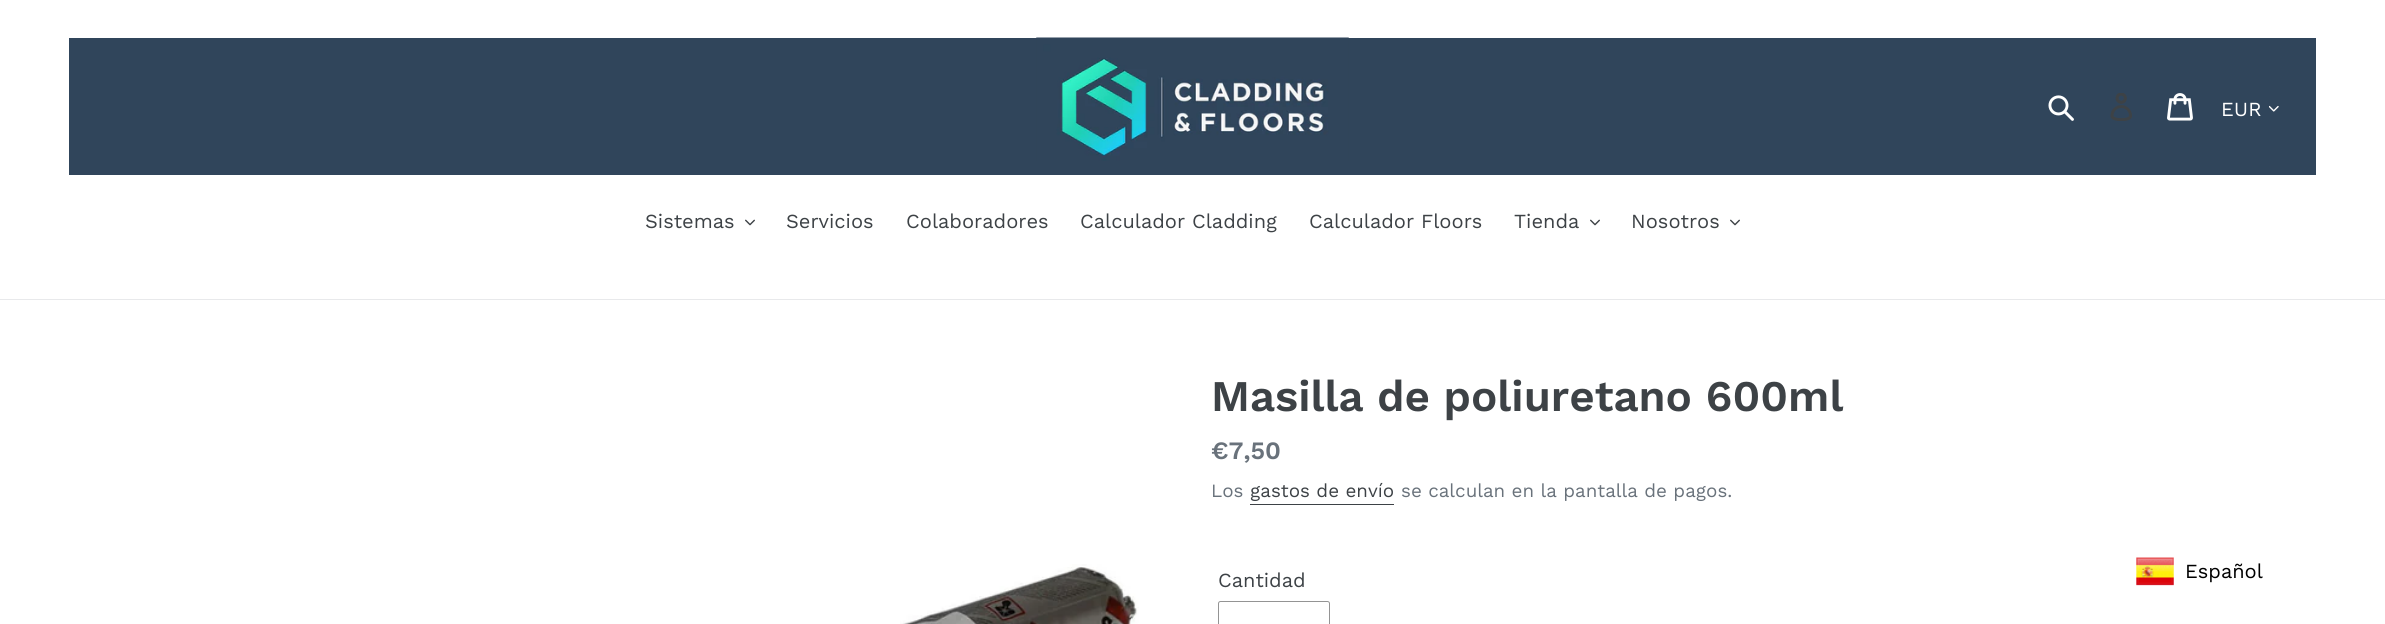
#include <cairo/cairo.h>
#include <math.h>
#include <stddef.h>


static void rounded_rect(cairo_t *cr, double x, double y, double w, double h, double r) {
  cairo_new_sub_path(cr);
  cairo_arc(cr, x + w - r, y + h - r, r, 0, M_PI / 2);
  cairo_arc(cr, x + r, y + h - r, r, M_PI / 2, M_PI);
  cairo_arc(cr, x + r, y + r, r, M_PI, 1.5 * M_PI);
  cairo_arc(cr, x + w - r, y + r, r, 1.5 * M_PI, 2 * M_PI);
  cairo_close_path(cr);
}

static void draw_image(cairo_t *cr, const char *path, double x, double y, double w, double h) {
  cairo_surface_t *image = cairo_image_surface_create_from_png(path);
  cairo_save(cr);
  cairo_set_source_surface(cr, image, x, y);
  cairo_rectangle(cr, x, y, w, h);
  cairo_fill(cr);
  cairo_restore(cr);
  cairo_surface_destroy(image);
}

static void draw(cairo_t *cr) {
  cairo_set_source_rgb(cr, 1, 1, 1);
  cairo_paint(cr);
  cairo_set_source_rgb(cr, 48 / 255.0, 69 / 255.0, 91 / 255.0);
  cairo_rectangle(cr, 69, 38, 2247, 137);
  cairo_fill(cr);
  draw_image(cr, "images/1.png", 1036, 37, 313, 124);
  draw_image(cr, "images/2.png", 2048, 95, 26, 26);
  draw_image(cr, "images/3.png", 2110, 93, 22, 28);
  draw_image(cr, "images/4.png", 2167, 93, 26, 28);
  draw_image(cr, "images/5.png", 2269, 105, 10, 7);
  cairo_set_source_rgb(cr, 232 / 255.0, 233 / 255.0, 235 / 255.0);
  cairo_rectangle(cr, 0, 299, 2385, 1);
  cairo_fill(cr);
  draw_image(cr, "images/6.png", 745, 219, 10, 7);
  draw_image(cr, "images/6.png", 1590, 219, 10, 7);
  draw_image(cr, "images/6.png", 1730, 219, 10, 7);
  cairo_set_source_rgb(cr, 61 / 255.0, 66 / 255.0, 70 / 255.0);
  cairo_rectangle(cr, 1250, 504, 144, 1);
  cairo_fill(cr);
  rounded_rect(cr, 1218.5, 601.5, 111, 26, 2);
  cairo_set_source_rgb(cr, 148 / 255.0, 148 / 255.0, 148 / 255.0);
  cairo_set_line_width(cr, 1);
  cairo_stroke(cr);
  draw_image(cr, "images/7.png", 900, 564, 239, 60);
  draw_image(cr, "images/8.png", 2136, 557, 38, 29);
  cairo_select_font_face(cr, "Work Sans", CAIRO_FONT_SLANT_NORMAL, CAIRO_FONT_WEIGHT_NORMAL);
  cairo_set_font_size(cr, 20);
  cairo_set_source_rgb(cr, 1, 1, 1);
  cairo_move_to(cr, 2221, 116);
  cairo_show_text(cr, "EUR");
  cairo_set_source_rgb(cr, 61 / 255.0, 66 / 255.0, 70 / 255.0);
  cairo_move_to(cr, 645, 228);
  cairo_show_text(cr, "Sistemas");
  cairo_move_to(cr, 786, 228);
  cairo_show_text(cr, "Servicios");
  cairo_move_to(cr, 906, 228);
  cairo_show_text(cr, "Colaboradores");
  cairo_move_to(cr, 1080, 228);
  cairo_show_text(cr, "Calculador Cladding");
  cairo_move_to(cr, 1309, 228);
  cairo_show_text(cr, "Calculador Floors");
  cairo_move_to(cr, 1514, 228);
  cairo_show_text(cr, "Tienda");
  cairo_move_to(cr, 1631, 228);
  cairo_show_text(cr, "Nosotros");
  cairo_select_font_face(cr, "Work Sans SemiBold", CAIRO_FONT_SLANT_NORMAL, CAIRO_FONT_WEIGHT_NORMAL);
  cairo_set_font_size(cr, 43.75);
  cairo_move_to(cr, 1211, 411);
  cairo_show_text(cr, "Masilla de poliuretano 600ml");
  cairo_set_font_size(cr, 25);
  cairo_set_source_rgb(cr, 105 / 255.0, 114 / 255.0, 123 / 255.0);
  cairo_move_to(cr, 1211, 459);
  cairo_show_text(cr, "€7,50");
  cairo_select_font_face(cr, "Work Sans", CAIRO_FONT_SLANT_NORMAL, CAIRO_FONT_WEIGHT_NORMAL);
  cairo_set_font_size(cr, 18.75);
  cairo_move_to(cr, 1211, 497);
  cairo_show_text(cr, "Los");
  cairo_set_source_rgb(cr, 61 / 255.0, 66 / 255.0, 70 / 255.0);
  cairo_move_to(cr, 1250, 497);
  cairo_show_text(cr, "gastos de envío");
  cairo_set_source_rgb(cr, 105 / 255.0, 114 / 255.0, 123 / 255.0);
  cairo_move_to(cr, 1401, 497);
  cairo_show_text(cr, "se calculan en la pantalla de pagos.");
  cairo_set_font_size(cr, 20);
  cairo_set_source_rgb(cr, 61 / 255.0, 66 / 255.0, 70 / 255.0);
  cairo_move_to(cr, 1218, 587);
  cairo_show_text(cr, "Cantidad");
  cairo_set_source_rgb(cr, 0, 0, 0);
  cairo_move_to(cr, 2185, 578);
  cairo_show_text(cr, "Español");
}

int main(void) {
  cairo_surface_t *surface = cairo_image_surface_create(CAIRO_FORMAT_RGB24, 2385, 624);
  cairo_t *cr = cairo_create(surface);
  cairo_font_options_t *options = cairo_font_options_create();
  cairo_font_options_set_hint_metrics(options, CAIRO_HINT_METRICS_OFF);
  cairo_font_options_set_hint_style(options, CAIRO_HINT_STYLE_NONE);
  cairo_set_font_options(cr, options);
  cairo_set_miter_limit(cr, 4);
  draw(cr);
  cairo_surface_write_to_png(surface, "out.png");
  cairo_font_options_destroy(options);
  cairo_destroy(cr);
  cairo_surface_destroy(surface);
  return 0;
}
